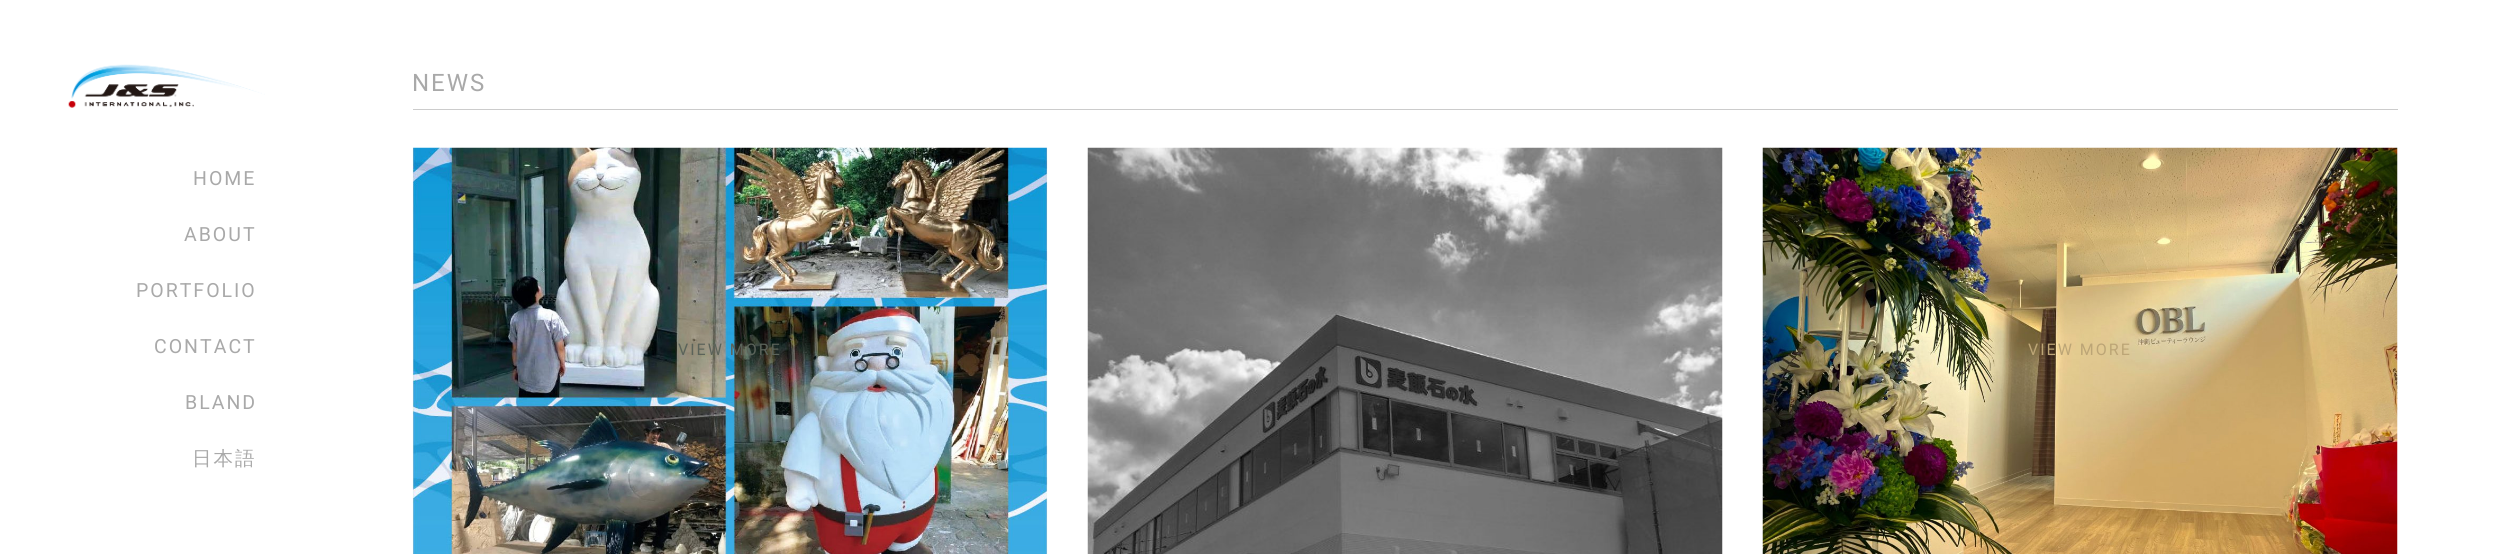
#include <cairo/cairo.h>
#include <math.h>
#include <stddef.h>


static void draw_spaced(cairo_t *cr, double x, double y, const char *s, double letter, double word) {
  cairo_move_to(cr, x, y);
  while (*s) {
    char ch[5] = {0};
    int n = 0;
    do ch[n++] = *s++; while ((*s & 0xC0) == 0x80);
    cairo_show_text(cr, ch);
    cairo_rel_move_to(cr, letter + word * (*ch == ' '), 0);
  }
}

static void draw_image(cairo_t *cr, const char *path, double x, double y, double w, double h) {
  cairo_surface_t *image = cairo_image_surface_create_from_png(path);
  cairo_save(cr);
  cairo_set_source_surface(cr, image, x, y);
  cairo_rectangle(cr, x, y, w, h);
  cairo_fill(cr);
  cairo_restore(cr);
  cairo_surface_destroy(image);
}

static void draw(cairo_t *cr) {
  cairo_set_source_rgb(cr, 1, 1, 1);
  cairo_paint(cr);
  draw_image(cr, "images/1.png", 68, 64, 197, 44);
  cairo_set_source_rgb(cr, 204 / 255.0, 204 / 255.0, 204 / 255.0);
  cairo_rectangle(cr, 413, 109, 1985, 1);
  cairo_fill(cr);
  draw_image(cr, "images/2.png", 412, 147, 636, 407);
  draw_image(cr, "images/3.png", 1087, 147, 636, 407);
  draw_image(cr, "images/4.png", 1762, 147, 636, 407);
  cairo_select_font_face(cr, "Roboto", CAIRO_FONT_SLANT_NORMAL, CAIRO_FONT_WEIGHT_NORMAL);
  cairo_set_font_size(cr, 19.5);
  cairo_set_source_rgb(cr, 169 / 255.0, 169 / 255.0, 169 / 255.0);
  draw_spaced(cr, 193, 185, "HOME", 2, 0);
  draw_spaced(cr, 184, 241, "ABOUT", 2, 0);
  draw_spaced(cr, 136, 297, "PORTFOLIO", 2, 0);
  draw_spaced(cr, 154, 353, "CONTACT", 2, 0);
  draw_spaced(cr, 185, 409, "BLAND", 2, 0);
  cairo_select_font_face(cr, "WenQuanYi Zen Hei Medium", CAIRO_FONT_SLANT_NORMAL, CAIRO_FONT_WEIGHT_NORMAL);
  draw_spaced(cr, 192, 465, "日本語", 2, 0);
  cairo_select_font_face(cr, "Roboto", CAIRO_FONT_SLANT_NORMAL, CAIRO_FONT_WEIGHT_NORMAL);
  cairo_set_font_size(cr, 24);
  draw_spaced(cr, 412, 91, "NEWS", 2, 0);
  cairo_set_font_size(cr, 16);
  cairo_set_source_rgb(cr, 91 / 255.0, 99 / 255.0, 90 / 255.0);
  draw_spaced(cr, 678, 355, "VIEW MORE", 2, 0);
  cairo_set_source_rgb(cr, 188 / 255.0, 165 / 255.0, 118 / 255.0);
  draw_spaced(cr, 2028, 355, "VIEW MORE", 2, 0);
}

int main(void) {
  cairo_surface_t *surface = cairo_image_surface_create(CAIRO_FORMAT_RGB24, 2497, 554);
  cairo_t *cr = cairo_create(surface);
  cairo_font_options_t *options = cairo_font_options_create();
  cairo_font_options_set_hint_metrics(options, CAIRO_HINT_METRICS_OFF);
  cairo_font_options_set_hint_style(options, CAIRO_HINT_STYLE_NONE);
  cairo_set_font_options(cr, options);
  cairo_set_miter_limit(cr, 4);
  draw(cr);
  cairo_surface_write_to_png(surface, "out.png");
  cairo_font_options_destroy(options);
  cairo_destroy(cr);
  cairo_surface_destroy(surface);
  return 0;
}
